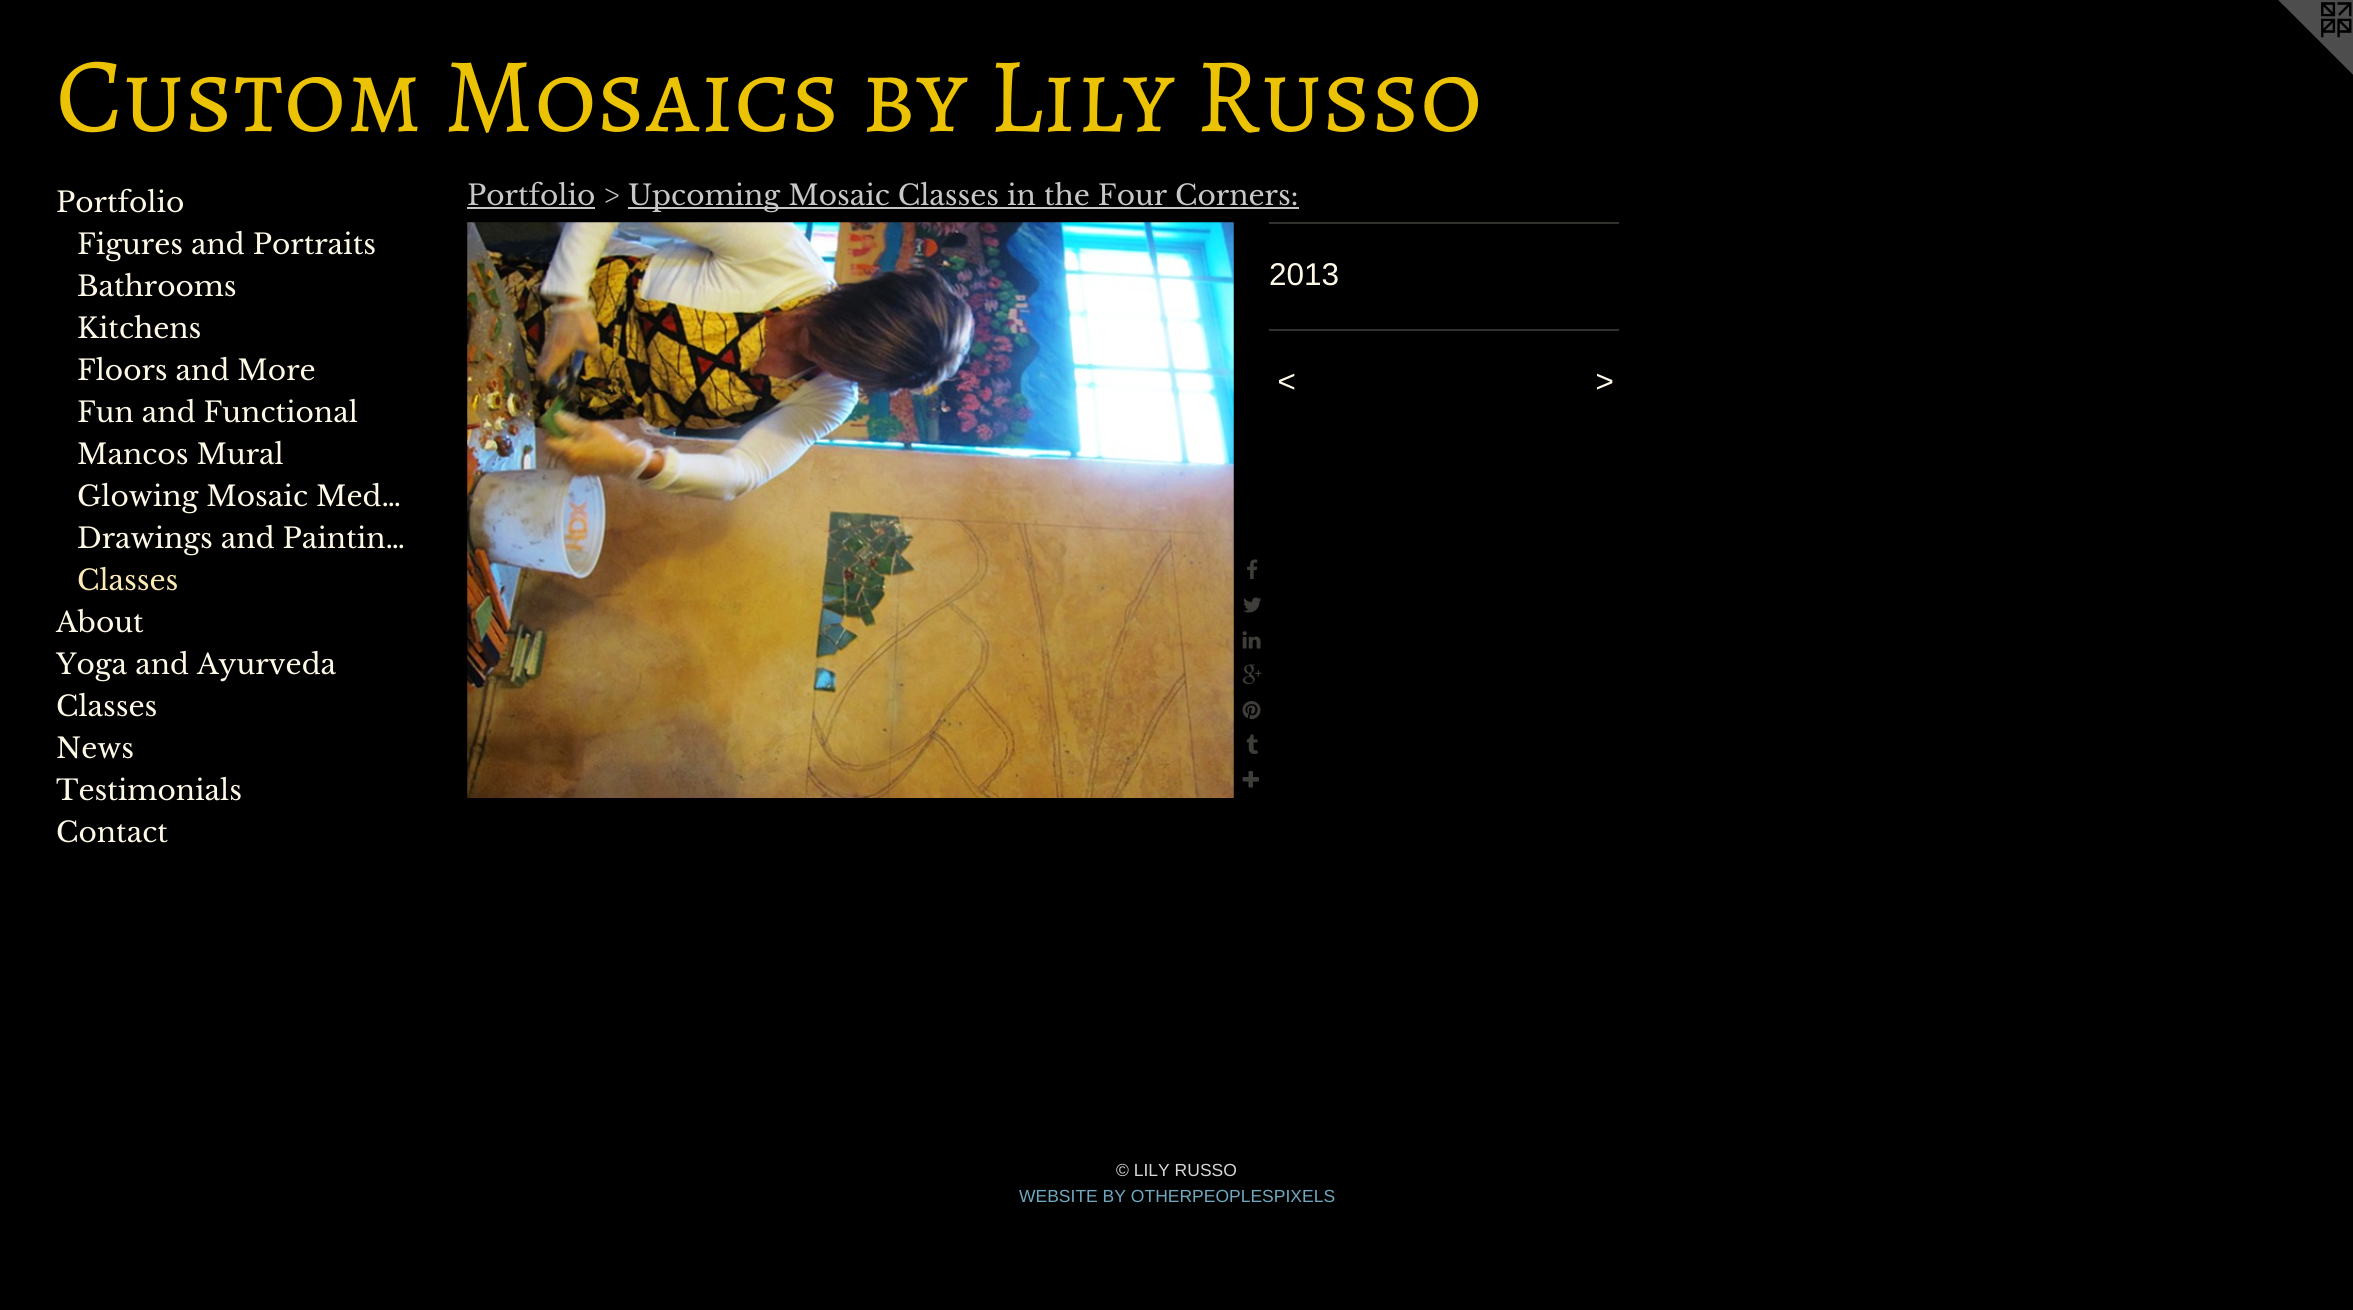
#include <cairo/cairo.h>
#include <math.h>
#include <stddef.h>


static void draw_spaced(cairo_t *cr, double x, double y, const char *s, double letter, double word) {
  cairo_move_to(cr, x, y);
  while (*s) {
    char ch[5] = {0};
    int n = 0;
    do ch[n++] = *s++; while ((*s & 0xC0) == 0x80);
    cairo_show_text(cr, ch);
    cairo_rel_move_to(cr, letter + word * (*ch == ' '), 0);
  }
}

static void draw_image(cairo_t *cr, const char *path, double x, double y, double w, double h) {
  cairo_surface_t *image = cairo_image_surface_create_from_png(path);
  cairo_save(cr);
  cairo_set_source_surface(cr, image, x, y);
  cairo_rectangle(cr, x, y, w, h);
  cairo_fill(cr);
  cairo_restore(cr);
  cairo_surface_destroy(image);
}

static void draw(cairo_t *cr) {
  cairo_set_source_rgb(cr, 0, 0, 0);
  cairo_paint(cr);
  draw_image(cr, "images/1.png", 2278, 0, 75, 75);
  cairo_set_source_rgb(cr, 199 / 255.0, 199 / 255.0, 198 / 255.0);
  cairo_rectangle(cr, 467, 207, 128, 2);
  cairo_fill(cr);
  cairo_rectangle(cr, 628, 207, 671, 2);
  cairo_fill(cr);
  draw_image(cr, "images/2.png", 467, 222, 767, 576);
  draw_image(cr, "images/3.png", 1247, 559, 11, 20);
  draw_image(cr, "images/4.png", 1243, 597, 19, 16);
  draw_image(cr, "images/5.png", 1242, 631, 19, 18);
  draw_image(cr, "images/6.png", 1242, 664, 20, 20);
  draw_image(cr, "images/7.png", 1242, 701, 19, 18);
  draw_image(cr, "images/8.png", 1246, 734, 12, 20);
  draw_image(cr, "images/9.png", 1242, 771, 17, 17);
  cairo_set_source_rgb(cr, 50 / 255.0, 49 / 255.0, 46 / 255.0);
  cairo_rectangle(cr, 1269, 222, 350, 2);
  cairo_fill(cr);
  cairo_rectangle(cr, 1269, 329, 350, 2);
  cairo_fill(cr);
  cairo_select_font_face(cr, "Alegreya SC", CAIRO_FONT_SLANT_NORMAL, CAIRO_FONT_WEIGHT_NORMAL);
  cairo_set_font_size(cr, 106.75);
  cairo_set_source_rgb(cr, 236 / 255.0, 195 / 255.0, 4 / 255.0);
  cairo_move_to(cr, 56, 131);
  cairo_show_text(cr, "Custom Mosaics by Lily Russo");
  cairo_select_font_face(cr, "Libre Baskerville", CAIRO_FONT_SLANT_NORMAL, CAIRO_FONT_WEIGHT_NORMAL);
  cairo_set_font_size(cr, 28);
  cairo_set_source_rgb(cr, 254 / 255.0, 248 / 255.0, 231 / 255.0);
  cairo_move_to(cr, 56, 212);
  cairo_show_text(cr, "Portfolio");
  cairo_move_to(cr, 77, 254);
  cairo_show_text(cr, "Figures and Portraits");
  cairo_move_to(cr, 77, 296);
  cairo_show_text(cr, "Bathrooms");
  cairo_move_to(cr, 77, 338);
  cairo_show_text(cr, "Kitchens");
  cairo_move_to(cr, 77, 380);
  cairo_show_text(cr, "Floors and More");
  cairo_move_to(cr, 77, 422);
  cairo_show_text(cr, "Fun and Functional");
  cairo_move_to(cr, 77, 464);
  cairo_show_text(cr, "Mancos Mural");
  cairo_move_to(cr, 77, 506);
  cairo_show_text(cr, "Glowing Mosaic Med…");
  cairo_move_to(cr, 77, 548);
  cairo_show_text(cr, "Drawings and Paintin…");
  cairo_set_source_rgb(cr, 252 / 255.0, 234 / 255.0, 182 / 255.0);
  cairo_move_to(cr, 77, 590);
  cairo_show_text(cr, "Classes");
  cairo_set_source_rgb(cr, 254 / 255.0, 248 / 255.0, 231 / 255.0);
  cairo_move_to(cr, 56, 632);
  cairo_show_text(cr, "About");
  cairo_move_to(cr, 56, 674);
  cairo_show_text(cr, "Yoga and Ayurveda");
  cairo_move_to(cr, 56, 716);
  cairo_show_text(cr, "Classes");
  cairo_move_to(cr, 56, 758);
  cairo_show_text(cr, "News");
  cairo_move_to(cr, 56, 800);
  cairo_show_text(cr, "Testimonials");
  cairo_move_to(cr, 56, 842);
  cairo_show_text(cr, "Contact");
  cairo_set_source_rgb(cr, 199 / 255.0, 199 / 255.0, 198 / 255.0);
  cairo_move_to(cr, 467, 205);
  cairo_show_text(cr, "Portfolio >");
  cairo_move_to(cr, 628, 205);
  cairo_show_text(cr, "Upcoming Mosaic Classes in the Four Corners:");
  cairo_select_font_face(cr, "Liberation Sans", CAIRO_FONT_SLANT_NORMAL, CAIRO_FONT_WEIGHT_NORMAL);
  cairo_set_font_size(cr, 31.5);
  cairo_set_source_rgb(cr, 254 / 255.0, 248 / 255.0, 231 / 255.0);
  cairo_move_to(cr, 1269, 285);
  cairo_show_text(cr, "2013");
  cairo_select_font_face(cr, "Liberation Sans", CAIRO_FONT_SLANT_ITALIC, CAIRO_FONT_WEIGHT_NORMAL);
  draw_spaced(cr, 1277, 392, "<", 2, 0);
  draw_spaced(cr, 1595, 392, ">", 2, 0);
  cairo_select_font_face(cr, "Liberation Sans", CAIRO_FONT_SLANT_NORMAL, CAIRO_FONT_WEIGHT_NORMAL);
  cairo_set_font_size(cr, 17.5);
  cairo_set_source_rgb(cr, 214 / 255.0, 214 / 255.0, 214 / 255.0);
  cairo_move_to(cr, 1116, 1176);
  cairo_show_text(cr, "© LILY RUSSO");
  cairo_set_source_rgb(cr, 112 / 255.0, 168 / 255.0, 192 / 255.0);
  cairo_move_to(cr, 1019, 1202);
  cairo_show_text(cr, "WEBSITE BY OTHERPEOPLESPIXELS");
}

int main(void) {
  cairo_surface_t *surface = cairo_image_surface_create(CAIRO_FORMAT_RGB24, 2353, 1310);
  cairo_t *cr = cairo_create(surface);
  cairo_font_options_t *options = cairo_font_options_create();
  cairo_font_options_set_hint_metrics(options, CAIRO_HINT_METRICS_OFF);
  cairo_font_options_set_hint_style(options, CAIRO_HINT_STYLE_NONE);
  cairo_set_font_options(cr, options);
  cairo_set_miter_limit(cr, 4);
  draw(cr);
  cairo_surface_write_to_png(surface, "out.png");
  cairo_font_options_destroy(options);
  cairo_destroy(cr);
  cairo_surface_destroy(surface);
  return 0;
}
